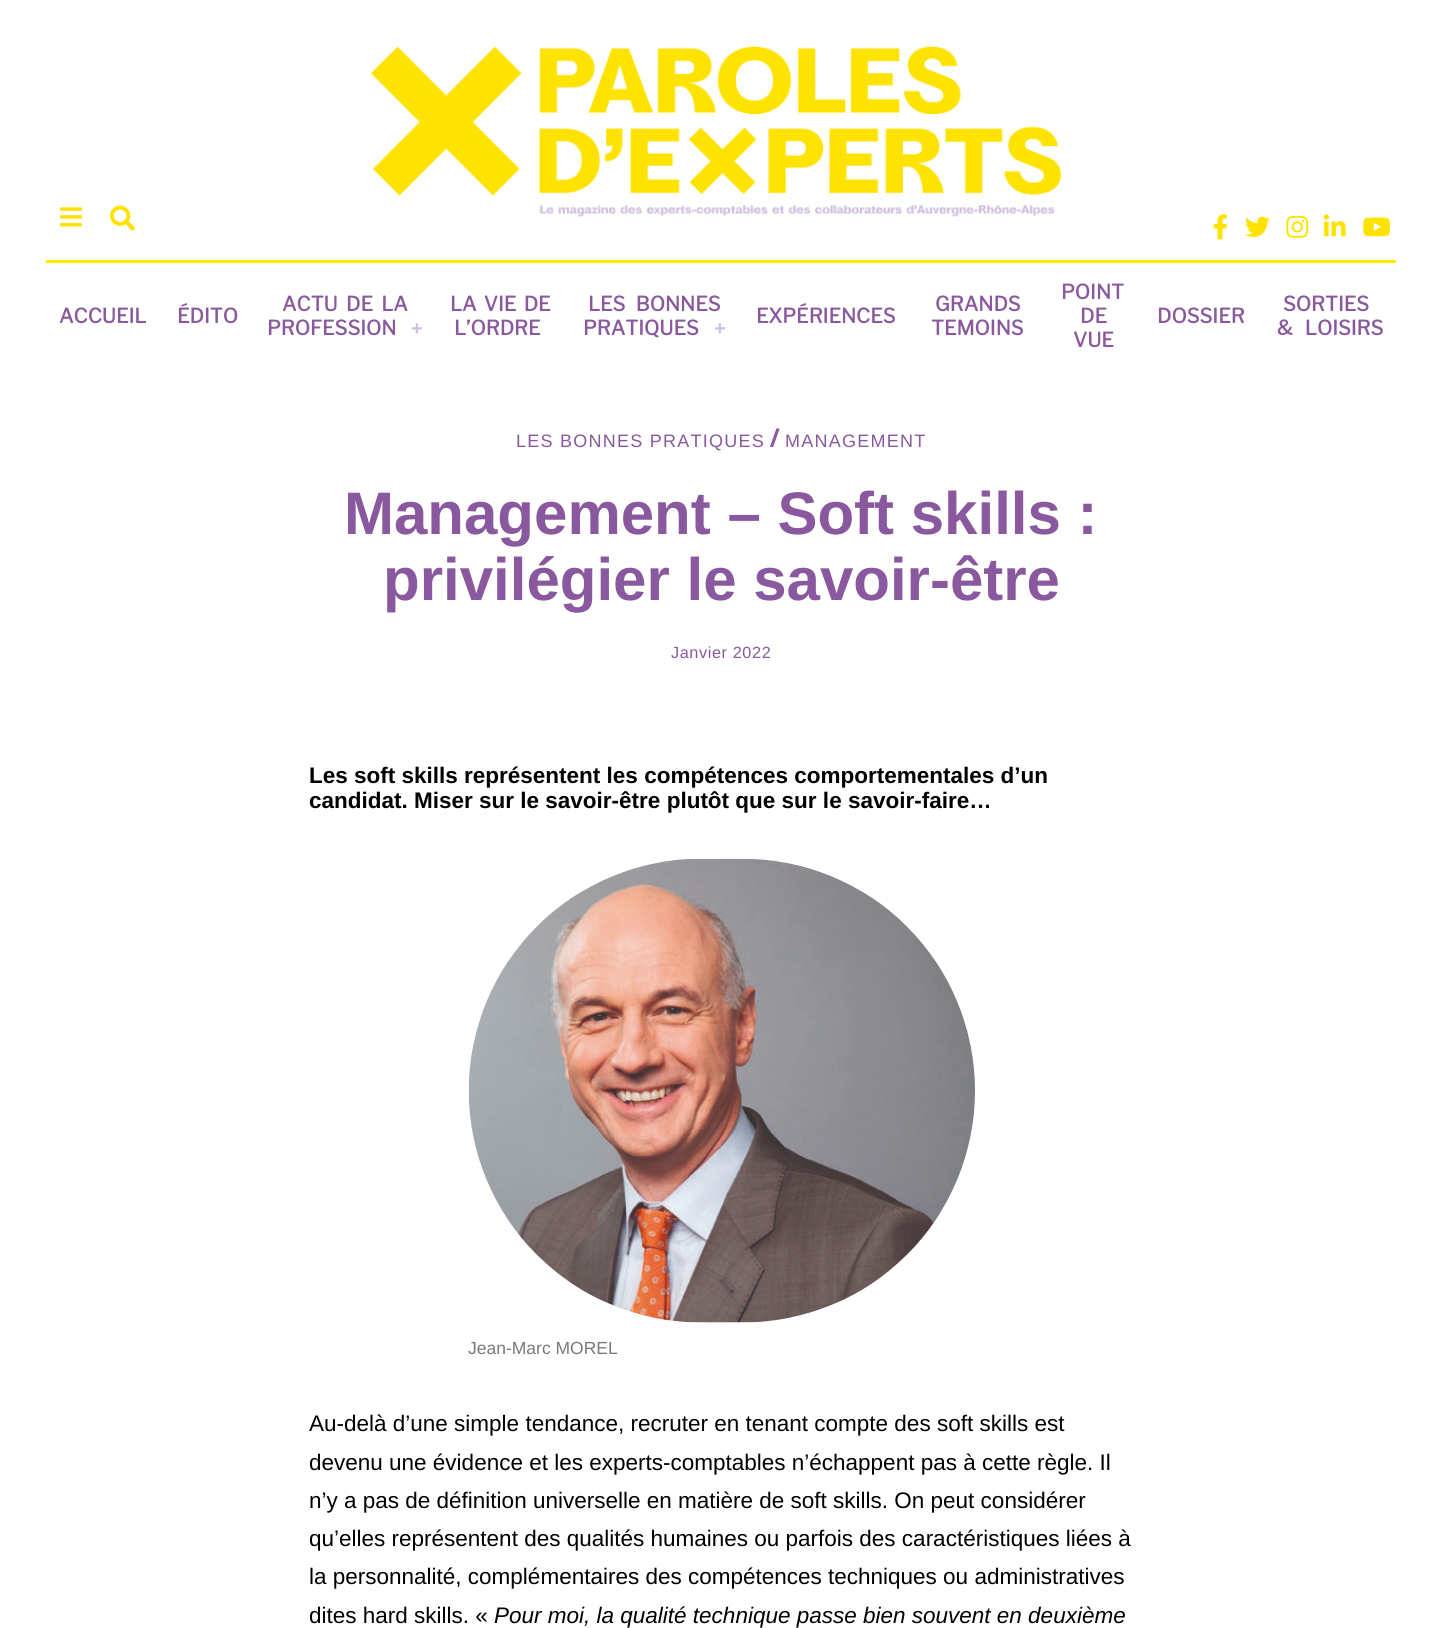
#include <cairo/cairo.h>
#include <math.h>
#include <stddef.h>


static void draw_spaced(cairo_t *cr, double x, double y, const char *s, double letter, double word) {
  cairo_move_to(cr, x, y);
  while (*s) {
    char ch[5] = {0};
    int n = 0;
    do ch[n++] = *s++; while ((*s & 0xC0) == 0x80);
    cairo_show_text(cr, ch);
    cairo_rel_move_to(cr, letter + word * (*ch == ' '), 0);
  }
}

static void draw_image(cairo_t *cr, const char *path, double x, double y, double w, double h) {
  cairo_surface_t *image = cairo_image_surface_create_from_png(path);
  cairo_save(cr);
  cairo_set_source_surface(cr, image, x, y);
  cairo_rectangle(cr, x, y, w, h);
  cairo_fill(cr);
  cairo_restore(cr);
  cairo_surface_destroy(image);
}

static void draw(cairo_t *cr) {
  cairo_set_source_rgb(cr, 1, 1, 1);
  cairo_paint(cr);
  draw_image(cr, "images/1.png", 60, 207, 22, 20);
  draw_image(cr, "images/2.png", 110, 205, 25, 26);
  draw_image(cr, "images/3.png", 370, 46, 692, 171);
  draw_image(cr, "images/4.png", 1213, 214, 14, 26);
  draw_image(cr, "images/5.png", 1245, 216, 25, 21);
  draw_image(cr, "images/6.png", 1286, 215, 23, 23);
  draw_image(cr, "images/7.png", 1323, 214, 23, 23);
  draw_image(cr, "images/8.png", 1363, 217, 27, 20);
  cairo_set_source_rgb(cr, 1, 235 / 255.0, 0);
  cairo_rectangle(cr, 46, 260, 1350, 3);
  cairo_fill(cr);
  draw_image(cr, "images/9.png", 468, 858, 507, 465);
  cairo_select_font_face(cr, "Libre Franklin", CAIRO_FONT_SLANT_NORMAL, CAIRO_FONT_WEIGHT_BOLD);
  cairo_set_font_size(cr, 20);
  cairo_set_source_rgb(cr, 137 / 255.0, 88 / 255.0, 158 / 255.0);
  cairo_move_to(cr, 59, 323);
  cairo_show_text(cr, "ACCUEIL");
  cairo_move_to(cr, 177, 323);
  cairo_show_text(cr, "ÉDITO");
  draw_spaced(cr, 282, 311, "ACTU DE LA", 0, 4);
  cairo_move_to(cr, 267, 335);
  cairo_show_text(cr, "PROFESSION");
  cairo_select_font_face(cr, "Liberation Sans", CAIRO_FONT_SLANT_NORMAL, CAIRO_FONT_WEIGHT_BOLD);
  cairo_set_source_rgb(cr, 207 / 255.0, 191 / 255.0, 222 / 255.0);
  cairo_move_to(cr, 411, 335);
  cairo_show_text(cr, "+");
  cairo_select_font_face(cr, "Libre Franklin", CAIRO_FONT_SLANT_NORMAL, CAIRO_FONT_WEIGHT_BOLD);
  cairo_set_source_rgb(cr, 137 / 255.0, 88 / 255.0, 158 / 255.0);
  draw_spaced(cr, 450, 311, "LA VIE DE", 0, 3);
  cairo_move_to(cr, 454, 335);
  cairo_show_text(cr, "L’ORDRE");
  draw_spaced(cr, 588, 311, "LES BONNES", 0, 6);
  cairo_move_to(cr, 583, 335);
  cairo_show_text(cr, "PRATIQUES");
  cairo_select_font_face(cr, "Liberation Sans", CAIRO_FONT_SLANT_NORMAL, CAIRO_FONT_WEIGHT_BOLD);
  cairo_set_source_rgb(cr, 207 / 255.0, 191 / 255.0, 222 / 255.0);
  cairo_move_to(cr, 714, 335);
  cairo_show_text(cr, "+");
  cairo_select_font_face(cr, "Libre Franklin", CAIRO_FONT_SLANT_NORMAL, CAIRO_FONT_WEIGHT_BOLD);
  cairo_set_source_rgb(cr, 137 / 255.0, 88 / 255.0, 158 / 255.0);
  cairo_move_to(cr, 756, 323);
  cairo_show_text(cr, "EXPÉRIENCES");
  cairo_move_to(cr, 935, 311);
  cairo_show_text(cr, "GRANDS");
  cairo_move_to(cr, 931, 335);
  cairo_show_text(cr, "TEMOINS");
  cairo_move_to(cr, 1061, 299);
  cairo_show_text(cr, "POINT");
  cairo_move_to(cr, 1080, 323);
  cairo_show_text(cr, "DE");
  cairo_move_to(cr, 1073, 347);
  cairo_show_text(cr, "VUE");
  cairo_move_to(cr, 1157, 323);
  cairo_show_text(cr, "DOSSIER");
  cairo_move_to(cr, 1283, 311);
  cairo_show_text(cr, "SORTIES");
  draw_spaced(cr, 1277, 335, "& LOISIRS", 0, 8);
  cairo_select_font_face(cr, "Liberation Sans", CAIRO_FONT_SLANT_NORMAL, CAIRO_FONT_WEIGHT_NORMAL);
  cairo_set_font_size(cr, 18);
  draw_spaced(cr, 516, 447, "LES BONNES PRATIQUES", 1.25, 0);
  cairo_select_font_face(cr, "Libre Franklin Black", CAIRO_FONT_SLANT_NORMAL, CAIRO_FONT_WEIGHT_NORMAL);
  cairo_set_font_size(cr, 25);
  draw_spaced(cr, 770, 447, "/", 1.25, 0);
  cairo_select_font_face(cr, "Liberation Sans", CAIRO_FONT_SLANT_NORMAL, CAIRO_FONT_WEIGHT_NORMAL);
  cairo_set_font_size(cr, 18);
  draw_spaced(cr, 785, 447, "MANAGEMENT", 1.25, 0);
  cairo_select_font_face(cr, "Liberation Sans", CAIRO_FONT_SLANT_NORMAL, CAIRO_FONT_WEIGHT_BOLD);
  cairo_set_font_size(cr, 60);
  cairo_move_to(cr, 344, 534);
  cairo_show_text(cr, "Management – Soft skills :");
  cairo_move_to(cr, 383, 600);
  cairo_show_text(cr, "privilégier le savoir-être");
  cairo_select_font_face(cr, "Liberation Sans", CAIRO_FONT_SLANT_NORMAL, CAIRO_FONT_WEIGHT_NORMAL);
  cairo_set_font_size(cr, 16.25);
  draw_spaced(cr, 671, 658, "Janvier 2022", 0.6, 0);
  cairo_select_font_face(cr, "Liberation Sans", CAIRO_FONT_SLANT_NORMAL, CAIRO_FONT_WEIGHT_BOLD);
  cairo_set_font_size(cr, 22.5);
  cairo_set_source_rgb(cr, 0, 0, 0);
  cairo_move_to(cr, 309, 783);
  cairo_show_text(cr, "Les soft skills représentent les compétences comportementales d’un");
  cairo_move_to(cr, 309, 808);
  cairo_show_text(cr, "candidat. Miser sur le savoir-être plutôt que sur le savoir-faire…");
  cairo_select_font_face(cr, "Liberation Sans", CAIRO_FONT_SLANT_NORMAL, CAIRO_FONT_WEIGHT_NORMAL);
  cairo_set_font_size(cr, 17.5);
  cairo_set_source_rgb(cr, 121 / 255.0, 121 / 255.0, 121 / 255.0);
  cairo_move_to(cr, 468, 1354);
  cairo_show_text(cr, "Jean-Marc MOREL");
  cairo_set_font_size(cr, 22.5);
  cairo_set_source_rgb(cr, 0, 0, 0);
  cairo_move_to(cr, 309, 1431);
  cairo_show_text(cr, "Au-delà d’une simple tendance, recruter en tenant compte des soft skills est");
  cairo_move_to(cr, 309, 1470);
  cairo_show_text(cr, "devenu une évidence et les experts-comptables n’échappent pas à cette règle. Il");
  cairo_move_to(cr, 309, 1508);
  cairo_show_text(cr, "n’y a pas de définition universelle en matière de soft skills. On peut considérer");
  cairo_move_to(cr, 309, 1546);
  cairo_show_text(cr, "qu’elles représentent des qualités humaines ou parfois des caractéristiques liées à");
  cairo_move_to(cr, 309, 1584);
  cairo_show_text(cr, "la personnalité, complémentaires des compétences techniques ou administratives");
  cairo_move_to(cr, 309, 1623);
  cairo_show_text(cr, "dites hard skills. «");
  cairo_select_font_face(cr, "Liberation Sans", CAIRO_FONT_SLANT_ITALIC, CAIRO_FONT_WEIGHT_NORMAL);
  cairo_move_to(cr, 494, 1623);
  cairo_show_text(cr, "Pour moi, la qualité technique passe bien souvent en deuxième");
}

int main(void) {
  cairo_surface_t *surface = cairo_image_surface_create(CAIRO_FORMAT_RGB24, 1442, 1628);
  cairo_t *cr = cairo_create(surface);
  cairo_font_options_t *options = cairo_font_options_create();
  cairo_font_options_set_hint_metrics(options, CAIRO_HINT_METRICS_OFF);
  cairo_font_options_set_hint_style(options, CAIRO_HINT_STYLE_NONE);
  cairo_set_font_options(cr, options);
  cairo_set_miter_limit(cr, 4);
  draw(cr);
  cairo_surface_write_to_png(surface, "out.png");
  cairo_font_options_destroy(options);
  cairo_destroy(cr);
  cairo_surface_destroy(surface);
  return 0;
}
